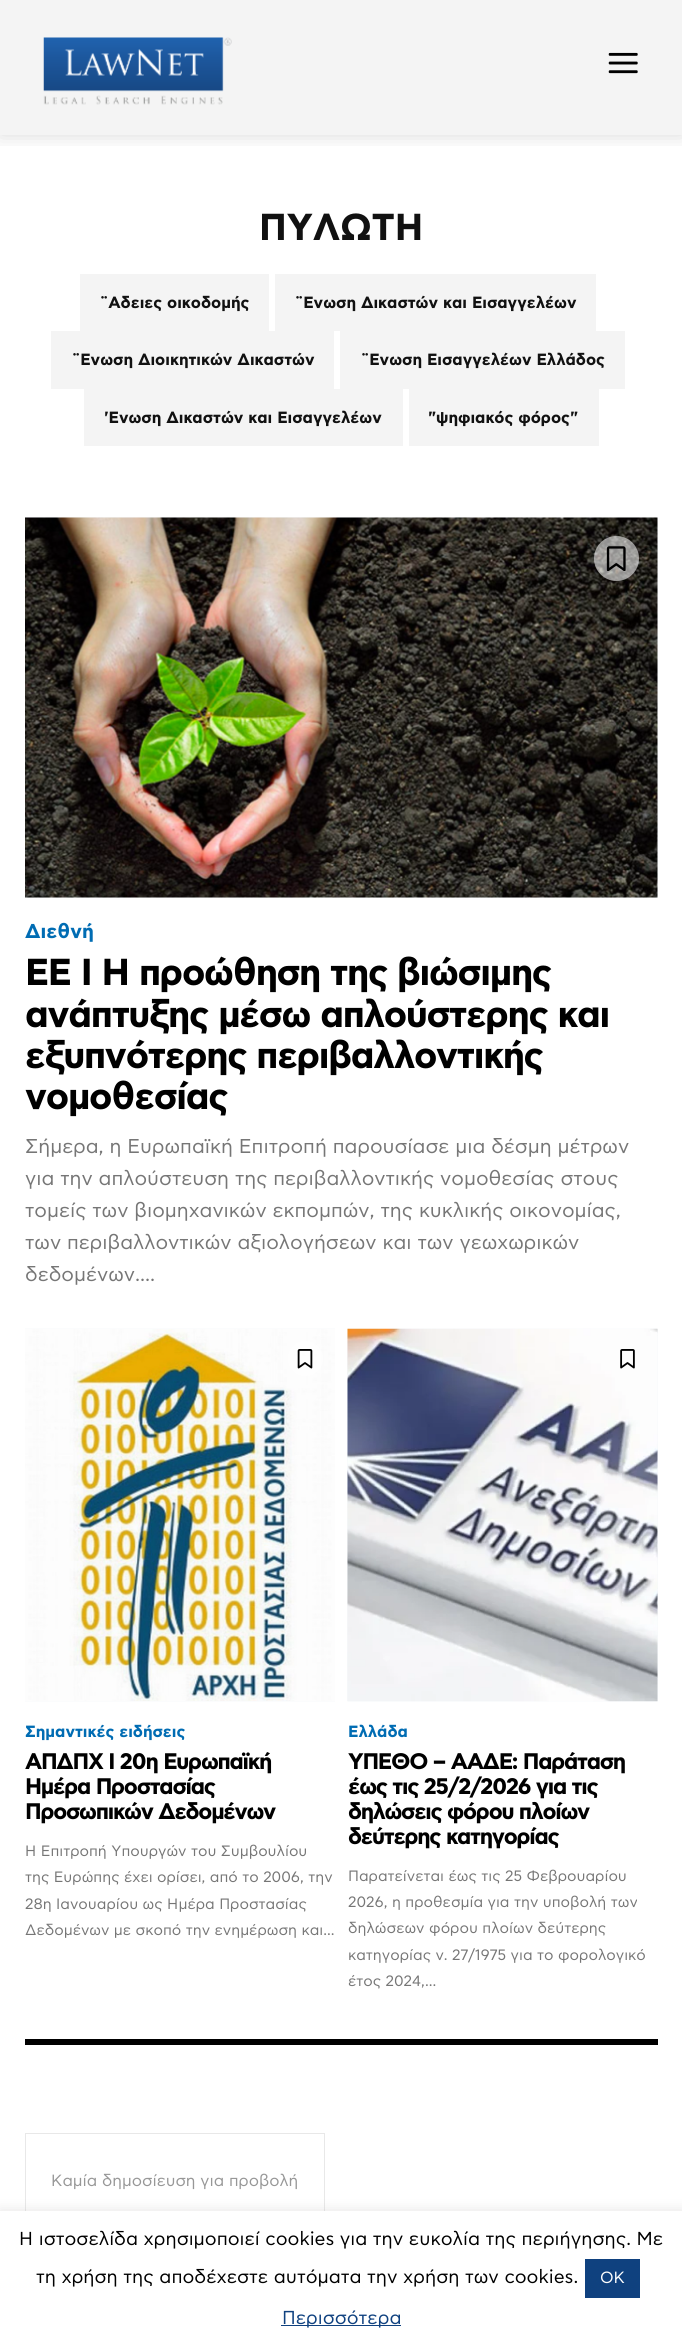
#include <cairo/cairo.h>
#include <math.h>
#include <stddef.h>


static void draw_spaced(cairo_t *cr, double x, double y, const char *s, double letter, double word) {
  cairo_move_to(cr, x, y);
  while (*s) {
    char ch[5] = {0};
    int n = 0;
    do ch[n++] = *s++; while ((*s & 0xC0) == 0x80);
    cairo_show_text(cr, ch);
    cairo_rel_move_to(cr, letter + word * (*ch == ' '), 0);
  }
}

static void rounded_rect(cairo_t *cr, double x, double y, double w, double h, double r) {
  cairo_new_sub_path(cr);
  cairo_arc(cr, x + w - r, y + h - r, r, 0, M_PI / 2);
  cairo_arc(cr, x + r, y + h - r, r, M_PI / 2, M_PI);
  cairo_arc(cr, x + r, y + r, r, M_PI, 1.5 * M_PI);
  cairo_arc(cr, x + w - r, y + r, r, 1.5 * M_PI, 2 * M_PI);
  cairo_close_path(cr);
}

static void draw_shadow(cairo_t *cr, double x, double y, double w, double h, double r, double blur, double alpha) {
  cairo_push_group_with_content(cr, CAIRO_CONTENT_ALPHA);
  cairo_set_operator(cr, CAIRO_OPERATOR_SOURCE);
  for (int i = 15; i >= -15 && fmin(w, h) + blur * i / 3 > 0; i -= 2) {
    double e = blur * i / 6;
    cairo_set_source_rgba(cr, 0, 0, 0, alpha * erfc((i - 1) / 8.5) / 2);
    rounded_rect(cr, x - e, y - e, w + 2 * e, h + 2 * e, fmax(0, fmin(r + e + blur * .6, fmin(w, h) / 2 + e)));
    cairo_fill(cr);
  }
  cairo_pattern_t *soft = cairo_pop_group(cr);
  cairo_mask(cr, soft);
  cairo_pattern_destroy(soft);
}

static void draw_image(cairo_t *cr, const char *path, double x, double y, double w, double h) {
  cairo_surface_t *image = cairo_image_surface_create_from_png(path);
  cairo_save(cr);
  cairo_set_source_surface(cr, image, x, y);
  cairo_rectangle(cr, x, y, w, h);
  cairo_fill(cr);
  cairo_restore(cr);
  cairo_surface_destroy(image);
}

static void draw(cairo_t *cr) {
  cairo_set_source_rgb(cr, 1, 1, 1);
  cairo_paint(cr);
  cairo_set_source_rgb(cr, 244 / 255.0, 244 / 255.0, 244 / 255.0);
  cairo_rectangle(cr, 0, 0, 682, 135);
  cairo_fill(cr);
  draw_image(cr, "images/1.png", 43, 37, 189, 68);
  draw_image(cr, "images/2.png", 608, 52, 30, 22);
  cairo_save(cr);
  cairo_rectangle(cr, 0, 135, 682, 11);
  cairo_clip(cr);
  cairo_set_source_rgb(cr, 0, 0, 0);
  draw_shadow(cr, 0, 0, 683, 135, 0, 10, 0.15);
  cairo_restore(cr);
  cairo_rectangle(cr, 80, 274, 189, 57);
  cairo_fill(cr);
  cairo_rectangle(cr, 275, 274, 321, 57);
  cairo_fill(cr);
  cairo_rectangle(cr, 51, 331, 283, 58);
  cairo_fill(cr);
  cairo_rectangle(cr, 340, 331, 285, 58);
  cairo_fill(cr);
  cairo_rectangle(cr, 84, 389, 319, 57);
  cairo_fill(cr);
  cairo_rectangle(cr, 409, 389, 190, 57);
  cairo_fill(cr);
  draw_image(cr, "images/3.png", 25, 517, 633, 381);
  draw_image(cr, "images/4.png", 25, 517, 633, 381);
  cairo_set_source_rgba(cr, 1, 1, 1, 0.56);
  cairo_arc(cr, 616.5, 558.5, 22.5, 0, 2 * M_PI);
  cairo_fill(cr);
  draw_image(cr, "images/5.png", 606, 546, 20, 25);
  draw_image(cr, "images/6.png", 25, 1328, 310, 374);
  draw_image(cr, "images/7.png", 25, 1329, 310, 372);
  cairo_arc(cr, 305.5, 1358.5, 17.5, 0, 2 * M_PI);
  cairo_fill(cr);
  draw_image(cr, "images/8.png", 297, 1349, 16, 20);
  draw_image(cr, "images/9.png", 347, 1328, 311, 374);
  draw_image(cr, "images/10.png", 347, 1328, 311, 374);
  draw_image(cr, "images/11.png", 620, 1349, 15, 20);
  cairo_set_source_rgb(cr, 0, 0, 0);
  cairo_rectangle(cr, 25, 2039, 633, 6);
  cairo_fill(cr);
  cairo_rectangle(cr, 25.5, 2133.5, 299, 99);
  cairo_set_source_rgb(cr, 232 / 255.0, 232 / 255.0, 232 / 255.0);
  cairo_set_line_width(cr, 1);
  cairo_stroke(cr);
  cairo_set_source_rgb(cr, 172 / 255.0, 171 / 255.0, 171 / 255.0);
  draw_shadow(cr, 0, 2210, 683, 135, 0, 6, 0.3);
  cairo_set_source_rgb(cr, 1, 1, 1);
  cairo_rectangle(cr, 0, 2211, 682, 135);
  cairo_fill(cr);
  cairo_set_source_rgb(cr, 15 / 255.0, 65 / 255.0, 127 / 255.0);
  cairo_rectangle(cr, 585, 2259, 55, 39);
  cairo_fill(cr);
  cairo_rectangle(cr, 281, 2325, 120, 1);
  cairo_fill(cr);
  cairo_select_font_face(cr, "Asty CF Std", CAIRO_FONT_SLANT_NORMAL, CAIRO_FONT_WEIGHT_BOLD);
  cairo_set_font_size(cr, 37.5);
  cairo_set_source_rgb(cr, 17 / 255.0, 17 / 255.0, 17 / 255.0);
  cairo_move_to(cr, 259, 240);
  cairo_show_text(cr, "ΠΥΛΩΤΗ");
  cairo_set_font_size(cr, 16.25);
  cairo_move_to(cr, 100, 308);
  cairo_show_text(cr, "¨Αδειες οικοδομής");
  cairo_move_to(cr, 295, 308);
  cairo_show_text(cr, "¨Ενωση Δικαστών και Εισαγγελέων");
  cairo_move_to(cr, 72, 365);
  cairo_show_text(cr, "¨Ενωση Διοικητικών Δικαστών");
  cairo_move_to(cr, 361, 365);
  cairo_show_text(cr, "¨Ενωση Εισαγγελέων Ελλάδος");
  cairo_move_to(cr, 104, 423);
  cairo_show_text(cr, "'Ενωση Δικαστών και Εισαγγελέων");
  cairo_move_to(cr, 428, 423);
  cairo_show_text(cr, "\"ψηφιακός φόρος\"");
  cairo_set_font_size(cr, 20);
  cairo_set_source_rgb(cr, 0, 108 / 255.0, 179 / 255.0);
  cairo_move_to(cr, 25, 938);
  cairo_show_text(cr, "Διεθνή");
  cairo_set_font_size(cr, 37.5);
  cairo_set_source_rgb(cr, 0, 0, 0);
  draw_spaced(cr, 25, 985, "ΕΕ Ι Η προώθηση της βιώσιμης", -1.25, 0);
  draw_spaced(cr, 25, 1027, "ανάπτυξης μέσω απλούστερης και", -1.25, 0);
  draw_spaced(cr, 25, 1068, "εξυπνότερης περιβαλλοντικής", -1.25, 0);
  draw_spaced(cr, 25, 1109, "νομοθεσίας", -1.25, 0);
  cairo_select_font_face(cr, "Asty CF Std", CAIRO_FONT_SLANT_NORMAL, CAIRO_FONT_WEIGHT_NORMAL);
  cairo_set_font_size(cr, 20);
  cairo_set_source_rgb(cr, 118 / 255.0, 118 / 255.0, 118 / 255.0);
  cairo_move_to(cr, 25, 1153);
  cairo_show_text(cr, "Σήμερα, η Ευρωπαϊκή Επιτροπή παρουσίασε μια δέσμη μέτρων");
  cairo_move_to(cr, 25, 1185);
  cairo_show_text(cr, "για την απλούστευση της περιβαλλοντικής νομοθεσίας στους");
  cairo_move_to(cr, 25, 1217);
  cairo_show_text(cr, "τομείς των βιομηχανικών εκπομπών, της κυκλικής οικονομίας,");
  cairo_move_to(cr, 25, 1249);
  cairo_show_text(cr, "των περιβαλλοντικών αξιολογήσεων και των γεωχωρικών");
  cairo_move_to(cr, 25, 1281);
  cairo_show_text(cr, "δεδομένων....");
  cairo_select_font_face(cr, "Asty CF Std", CAIRO_FONT_SLANT_NORMAL, CAIRO_FONT_WEIGHT_BOLD);
  cairo_set_font_size(cr, 16.25);
  cairo_set_source_rgb(cr, 0, 108 / 255.0, 179 / 255.0);
  cairo_move_to(cr, 25, 1737);
  cairo_show_text(cr, "Σημαντικές ειδήσεις");
  cairo_set_font_size(cr, 22.5);
  cairo_set_source_rgb(cr, 0, 0, 0);
  draw_spaced(cr, 25, 1769, "ΑΠΔΠΧ Ι 20η Ευρωπαϊκή", -1.25, 0);
  draw_spaced(cr, 25, 1794, "Ημέρα Προστασίας", -1.25, 0);
  draw_spaced(cr, 25, 1819, "Προσωπικών Δεδομένων", -1.25, 0);
  cairo_select_font_face(cr, "Asty CF Std", CAIRO_FONT_SLANT_NORMAL, CAIRO_FONT_WEIGHT_NORMAL);
  cairo_set_font_size(cr, 15);
  cairo_set_source_rgb(cr, 118 / 255.0, 118 / 255.0, 118 / 255.0);
  cairo_move_to(cr, 25, 1856);
  cairo_show_text(cr, "Η Επιτροπή Υπουργών του Συμβουλίου");
  cairo_move_to(cr, 25, 1882);
  cairo_show_text(cr, "της Ευρώπης έχει ορίσει, από το 2006, την");
  cairo_move_to(cr, 25, 1909);
  cairo_show_text(cr, "28η Ιανουαρίου ως Ημέρα Προστασίας");
  cairo_move_to(cr, 25, 1935);
  cairo_show_text(cr, "Δεδομένων με σκοπό την ενημέρωση και...");
  cairo_select_font_face(cr, "Asty CF Std", CAIRO_FONT_SLANT_NORMAL, CAIRO_FONT_WEIGHT_BOLD);
  cairo_set_font_size(cr, 16.25);
  cairo_set_source_rgb(cr, 0, 108 / 255.0, 179 / 255.0);
  cairo_move_to(cr, 348, 1737);
  cairo_show_text(cr, "Ελλάδα");
  cairo_set_font_size(cr, 22.5);
  cairo_set_source_rgb(cr, 0, 0, 0);
  draw_spaced(cr, 348, 1769, "ΥΠΕΘΟ – ΑΑΔΕ: Παράταση", -1.25, 0);
  draw_spaced(cr, 348, 1794, "έως τις 25/2/2026 για τις", -1.25, 0);
  draw_spaced(cr, 348, 1819, "δηλώσεις φόρου πλοίων", -1.25, 0);
  draw_spaced(cr, 348, 1844, "δεύτερης κατηγορίας", -1.25, 0);
  cairo_select_font_face(cr, "Asty CF Std", CAIRO_FONT_SLANT_NORMAL, CAIRO_FONT_WEIGHT_NORMAL);
  cairo_set_font_size(cr, 15);
  cairo_set_source_rgb(cr, 118 / 255.0, 118 / 255.0, 118 / 255.0);
  cairo_move_to(cr, 348, 1881);
  cairo_show_text(cr, "Παρατείνεται έως τις 25 Φεβρουαρίου");
  cairo_move_to(cr, 348, 1907);
  cairo_show_text(cr, "2026, η προθεσμία για την υποβολή των");
  cairo_move_to(cr, 348, 1933);
  cairo_show_text(cr, "δηλώσεων φόρου πλοίων δεύτερης");
  cairo_move_to(cr, 348, 1960);
  cairo_show_text(cr, "κατηγορίας ν. 27/1975 για το φορολογικό");
  cairo_move_to(cr, 348, 1986);
  cairo_show_text(cr, "έτος 2024,...");
  cairo_set_font_size(cr, 16.25);
  cairo_set_source_rgb(cr, 151 / 255.0, 151 / 255.0, 151 / 255.0);
  cairo_move_to(cr, 51, 2186);
  cairo_show_text(cr, "Καμία δημοσίευση για προβολή");
  cairo_set_font_size(cr, 18.75);
  cairo_set_source_rgb(cr, 0, 0, 0);
  cairo_move_to(cr, 19, 2245);
  cairo_show_text(cr, "Η ιστοσελίδα χρησιμοποιεί cookies για την ευκολία της περιήγησης. Με");
  cairo_move_to(cr, 36, 2283);
  cairo_show_text(cr, "τη χρήση της αποδέχεστε αυτόματα την χρήση των cookies.");
  cairo_set_font_size(cr, 16.25);
  cairo_set_source_rgb(cr, 1, 1, 1);
  cairo_move_to(cr, 600, 2283);
  cairo_show_text(cr, "OK");
  cairo_set_font_size(cr, 18.75);
  cairo_set_source_rgb(cr, 15 / 255.0, 65 / 255.0, 127 / 255.0);
  cairo_move_to(cr, 282, 2324);
  cairo_show_text(cr, "Περισσότερα");
}

int main(void) {
  cairo_surface_t *surface = cairo_image_surface_create(CAIRO_FORMAT_RGB24, 682, 2346);
  cairo_t *cr = cairo_create(surface);
  cairo_font_options_t *options = cairo_font_options_create();
  cairo_font_options_set_hint_metrics(options, CAIRO_HINT_METRICS_OFF);
  cairo_font_options_set_hint_style(options, CAIRO_HINT_STYLE_NONE);
  cairo_set_font_options(cr, options);
  cairo_set_miter_limit(cr, 4);
  draw(cr);
  cairo_surface_write_to_png(surface, "out.png");
  cairo_font_options_destroy(options);
  cairo_destroy(cr);
  cairo_surface_destroy(surface);
  return 0;
}
